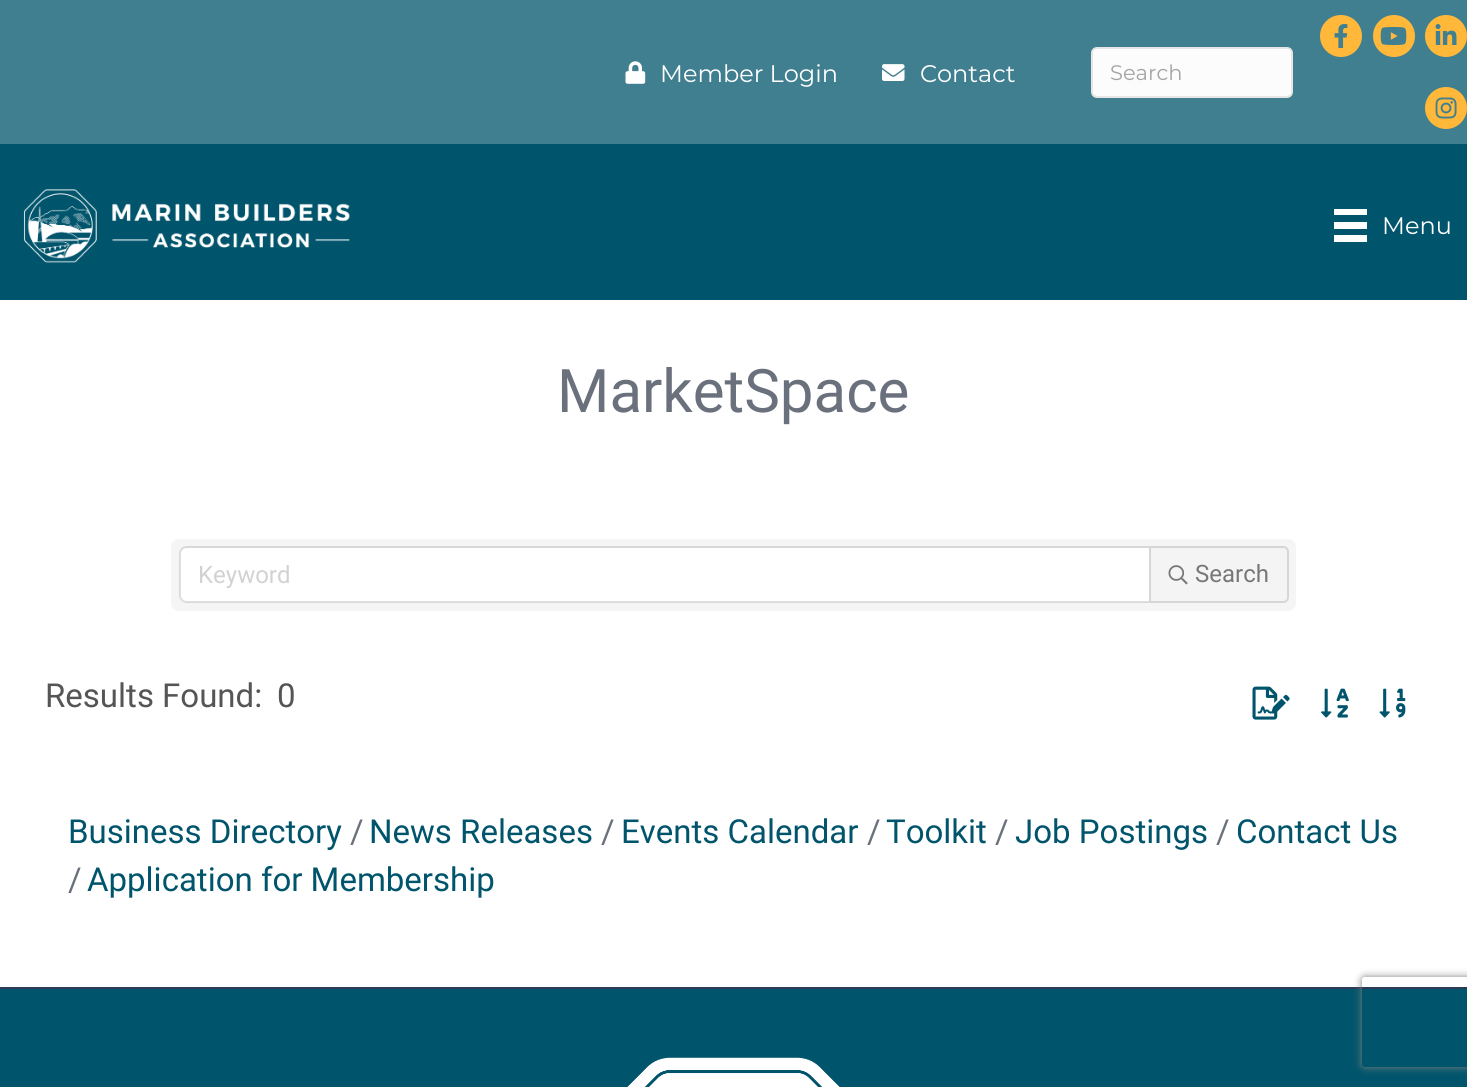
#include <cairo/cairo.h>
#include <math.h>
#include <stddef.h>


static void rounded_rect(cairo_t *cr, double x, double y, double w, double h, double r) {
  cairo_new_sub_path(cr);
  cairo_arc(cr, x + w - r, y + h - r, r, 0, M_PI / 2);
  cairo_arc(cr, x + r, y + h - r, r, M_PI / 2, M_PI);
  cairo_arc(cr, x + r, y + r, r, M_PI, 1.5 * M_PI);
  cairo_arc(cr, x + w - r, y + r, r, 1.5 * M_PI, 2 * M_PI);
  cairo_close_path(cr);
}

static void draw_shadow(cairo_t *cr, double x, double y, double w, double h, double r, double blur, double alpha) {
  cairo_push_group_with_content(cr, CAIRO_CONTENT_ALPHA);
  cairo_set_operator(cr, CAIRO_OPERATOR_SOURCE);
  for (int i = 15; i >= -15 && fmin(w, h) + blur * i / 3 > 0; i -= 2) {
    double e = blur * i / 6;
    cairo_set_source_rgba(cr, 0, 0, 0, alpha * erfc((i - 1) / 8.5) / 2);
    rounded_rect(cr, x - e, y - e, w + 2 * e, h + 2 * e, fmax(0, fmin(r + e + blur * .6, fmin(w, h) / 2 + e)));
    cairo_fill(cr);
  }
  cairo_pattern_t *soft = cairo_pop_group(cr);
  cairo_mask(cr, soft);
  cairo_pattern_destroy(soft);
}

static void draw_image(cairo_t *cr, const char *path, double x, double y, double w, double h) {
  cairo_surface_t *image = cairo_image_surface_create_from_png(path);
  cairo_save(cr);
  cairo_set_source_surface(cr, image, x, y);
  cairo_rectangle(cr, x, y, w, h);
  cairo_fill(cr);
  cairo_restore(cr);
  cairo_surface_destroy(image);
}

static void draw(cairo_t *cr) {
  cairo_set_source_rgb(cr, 64 / 255.0, 127 / 255.0, 144 / 255.0);
  cairo_paint(cr);
  draw_image(cr, "images/1.png", 625, 61, 21, 23);
  draw_image(cr, "images/2.png", 882, 64, 23, 17);
  cairo_set_source_rgb(cr, 252 / 255.0, 252 / 255.0, 252 / 255.0);
  rounded_rect(cr, 1092, 48, 200, 49, 5);
  cairo_fill_preserve(cr);
  cairo_set_source_rgb(cr, 230 / 255.0, 230 / 255.0, 230 / 255.0);
  cairo_stroke(cr);
  cairo_set_source_rgb(cr, 1, 184 / 255.0, 58 / 255.0);
  cairo_arc(cr, 1341, 36, 21, 0, 2 * M_PI);
  cairo_fill(cr);
  draw_image(cr, "images/3.png", 1334, 24, 14, 24);
  cairo_arc(cr, 1394, 36, 21, 0, 2 * M_PI);
  cairo_fill(cr);
  draw_image(cr, "images/4.png", 1380, 27, 27, 18);
  cairo_arc(cr, 1446, 36, 21, 0, 2 * M_PI);
  cairo_fill(cr);
  draw_image(cr, "images/5.png", 1435, 24, 22, 21);
  cairo_arc(cr, 1446, 108, 21, 0, 2 * M_PI);
  cairo_fill(cr);
  draw_image(cr, "images/6.png", 1435, 97, 22, 22);
  cairo_set_source_rgb(cr, 0, 84 / 255.0, 107 / 255.0);
  cairo_rectangle(cr, 0, 144, 1467, 156);
  cairo_fill(cr);
  draw_image(cr, "images/7.png", 23, 189, 327, 74);
  cairo_set_source_rgb(cr, 1, 1, 1);
  cairo_rectangle(cr, 1334, 209, 33, 6);
  cairo_fill(cr);
  cairo_rectangle(cr, 1334, 222, 33, 7);
  cairo_fill(cr);
  cairo_rectangle(cr, 1334, 235, 33, 7);
  cairo_fill(cr);
  cairo_rectangle(cr, 0, 300, 1467, 687);
  cairo_fill(cr);
  cairo_set_source_rgb(cr, 245 / 255.0, 245 / 255.0, 245 / 255.0);
  rounded_rect(cr, 171, 539, 1125, 72, 8);
  cairo_fill(cr);
  cairo_set_source_rgb(cr, 1, 1, 1);
  cairo_new_path(cr);
  cairo_move_to(cr, 186, 548);
  cairo_line_to(cr, 1149, 548);
  cairo_line_to(cr, 1149, 602);
  cairo_line_to(cr, 186, 602);
  cairo_curve_to(cr, 182.5, 602, 180, 599.5, 180, 596);
  cairo_line_to(cr, 180, 554);
  cairo_curve_to(cr, 180, 550.5, 182.5, 548, 186, 548);
  cairo_close_path(cr);
  cairo_fill(cr);
  cairo_new_path(cr);
  cairo_move_to(cr, 187, 547);
  cairo_line_to(cr, 1150, 547);
  cairo_line_to(cr, 1150, 602);
  cairo_line_to(cr, 187, 602);
  cairo_curve_to(cr, 183, 602, 180, 599, 180, 595);
  cairo_line_to(cr, 180, 554);
  cairo_curve_to(cr, 180, 550, 183, 547, 187, 547);
  cairo_close_path(cr);
  cairo_set_source_rgba(cr, 0, 0, 0, 0.12);
  cairo_stroke(cr);
  cairo_set_source_rgb(cr, 244 / 255.0, 244 / 255.0, 244 / 255.0);
  cairo_new_path(cr);
  cairo_move_to(cr, 1150, 547);
  cairo_line_to(cr, 1283, 547);
  cairo_curve_to(cr, 1286, 547, 1288, 549, 1288, 552);
  cairo_line_to(cr, 1288, 597);
  cairo_curve_to(cr, 1288, 600, 1286, 602, 1283, 602);
  cairo_line_to(cr, 1150, 602);
  cairo_close_path(cr);
  cairo_fill_preserve(cr);
  cairo_set_source_rgb(cr, 214 / 255.0, 214 / 255.0, 214 / 255.0);
  cairo_stroke(cr);
  draw_image(cr, "images/8.png", 1168, 565, 20, 20);
  draw_image(cr, "images/9.png", 1252, 686, 38, 34);
  draw_image(cr, "images/10.png", 1321, 688, 28, 30);
  draw_image(cr, "images/11.png", 1379, 688, 27, 30);
  cairo_set_source_rgb(cr, 0, 84 / 255.0, 107 / 255.0);
  cairo_rectangle(cr, 0, 989, 1467, 98);
  cairo_fill(cr);
  cairo_set_source_rgb(cr, 44 / 255.0, 58 / 255.0, 86 / 255.0);
  cairo_rectangle(cr, 0, 987, 1467, 2);
  cairo_fill(cr);
  draw_image(cr, "images/12.png", 627, 1057, 213, 30);
  cairo_save(cr);
  cairo_set_fill_rule(cr, CAIRO_FILL_RULE_EVEN_ODD);
  cairo_new_path(cr);
  cairo_move_to(cr, 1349, 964);
  cairo_line_to(cr, 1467, 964);
  cairo_line_to(cr, 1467, 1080);
  cairo_line_to(cr, 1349, 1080);
  cairo_close_path(cr);
  cairo_move_to(cr, 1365, 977);
  cairo_line_to(cr, 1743, 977);
  cairo_curve_to(cr, 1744.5, 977, 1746, 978.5, 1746, 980);
  cairo_line_to(cr, 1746, 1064);
  cairo_curve_to(cr, 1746, 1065.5, 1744.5, 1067, 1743, 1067);
  cairo_line_to(cr, 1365, 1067);
  cairo_curve_to(cr, 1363.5, 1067, 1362, 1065.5, 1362, 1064);
  cairo_line_to(cr, 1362, 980);
  cairo_curve_to(cr, 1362, 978.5, 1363.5, 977, 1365, 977);
  cairo_close_path(cr);
  cairo_clip(cr);
  cairo_set_source_rgb(cr, 128 / 255.0, 128 / 255.0, 128 / 255.0);
  draw_shadow(cr, 1362, 977, 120, 90, 3, 4, 1);
  cairo_restore(cr);
  cairo_select_font_face(cr, "Montserrat", CAIRO_FONT_SLANT_NORMAL, CAIRO_FONT_WEIGHT_NORMAL);
  cairo_set_font_size(cr, 24);
  cairo_set_source_rgb(cr, 1, 1, 1);
  cairo_move_to(cr, 660, 82);
  cairo_show_text(cr, "Member Login");
  cairo_move_to(cr, 920, 82);
  cairo_show_text(cr, "Contact");
  cairo_set_font_size(cr, 21);
  cairo_set_source_rgb(cr, 165 / 255.0, 164 / 255.0, 164 / 255.0);
  cairo_move_to(cr, 1110, 80);
  cairo_show_text(cr, "Search");
  cairo_set_font_size(cr, 24);
  cairo_set_source_rgb(cr, 1, 1, 1);
  cairo_move_to(cr, 1382, 234);
  cairo_show_text(cr, "Menu");
  cairo_select_font_face(cr, "Roboto", CAIRO_FONT_SLANT_NORMAL, CAIRO_FONT_WEIGHT_NORMAL);
  cairo_set_font_size(cr, 60);
  cairo_set_source_rgb(cr, 106 / 255.0, 112 / 255.0, 124 / 255.0);
  cairo_move_to(cr, 557, 412);
  cairo_show_text(cr, "MarketSpace");
  cairo_set_font_size(cr, 24);
  cairo_set_source_rgb(cr, 210 / 255.0, 210 / 255.0, 210 / 255.0);
  cairo_move_to(cr, 198, 583);
  cairo_show_text(cr, "Keyword");
  cairo_set_source_rgb(cr, 119 / 255.0, 119 / 255.0, 119 / 255.0);
  cairo_move_to(cr, 1195, 582);
  cairo_show_text(cr, "Search");
  cairo_set_font_size(cr, 33);
  cairo_set_source_rgb(cr, 85 / 255.0, 85 / 255.0, 85 / 255.0);
  cairo_move_to(cr, 45, 707);
  cairo_show_text(cr, "Results Found:");
  cairo_move_to(cr, 277, 707);
  cairo_show_text(cr, "0");
  cairo_set_source_rgb(cr, 0, 84 / 255.0, 107 / 255.0);
  cairo_move_to(cr, 68, 843);
  cairo_show_text(cr, "Business Directory");
  cairo_set_source_rgb(cr, 106 / 255.0, 112 / 255.0, 124 / 255.0);
  cairo_move_to(cr, 350, 843);
  cairo_show_text(cr, "/");
  cairo_set_source_rgb(cr, 0, 84 / 255.0, 107 / 255.0);
  cairo_move_to(cr, 369, 843);
  cairo_show_text(cr, "News Releases");
  cairo_set_source_rgb(cr, 106 / 255.0, 112 / 255.0, 124 / 255.0);
  cairo_move_to(cr, 601, 843);
  cairo_show_text(cr, "/");
  cairo_set_source_rgb(cr, 0, 84 / 255.0, 107 / 255.0);
  cairo_move_to(cr, 621, 843);
  cairo_show_text(cr, "Events Calendar");
  cairo_set_source_rgb(cr, 106 / 255.0, 112 / 255.0, 124 / 255.0);
  cairo_move_to(cr, 867, 843);
  cairo_show_text(cr, "/");
  cairo_set_source_rgb(cr, 0, 84 / 255.0, 107 / 255.0);
  cairo_move_to(cr, 886, 843);
  cairo_show_text(cr, "Toolkit");
  cairo_set_source_rgb(cr, 106 / 255.0, 112 / 255.0, 124 / 255.0);
  cairo_move_to(cr, 995, 843);
  cairo_show_text(cr, "/");
  cairo_set_source_rgb(cr, 0, 84 / 255.0, 107 / 255.0);
  cairo_move_to(cr, 1015, 843);
  cairo_show_text(cr, "Job Postings");
  cairo_set_source_rgb(cr, 106 / 255.0, 112 / 255.0, 124 / 255.0);
  cairo_move_to(cr, 1216, 843);
  cairo_show_text(cr, "/");
  cairo_set_source_rgb(cr, 0, 84 / 255.0, 107 / 255.0);
  cairo_move_to(cr, 1236, 843);
  cairo_show_text(cr, "Contact Us");
  cairo_set_source_rgb(cr, 106 / 255.0, 112 / 255.0, 124 / 255.0);
  cairo_move_to(cr, 68, 891);
  cairo_show_text(cr, "/");
  cairo_set_source_rgb(cr, 0, 84 / 255.0, 107 / 255.0);
  cairo_move_to(cr, 87, 891);
  cairo_show_text(cr, "Application for Membership");
}

int main(void) {
  cairo_surface_t *surface = cairo_image_surface_create(CAIRO_FORMAT_RGB24, 1467, 1087);
  cairo_t *cr = cairo_create(surface);
  cairo_font_options_t *options = cairo_font_options_create();
  cairo_font_options_set_hint_metrics(options, CAIRO_HINT_METRICS_OFF);
  cairo_font_options_set_hint_style(options, CAIRO_HINT_STYLE_NONE);
  cairo_set_font_options(cr, options);
  cairo_set_miter_limit(cr, 4);
  draw(cr);
  cairo_surface_write_to_png(surface, "out.png");
  cairo_font_options_destroy(options);
  cairo_destroy(cr);
  cairo_surface_destroy(surface);
  return 0;
}
